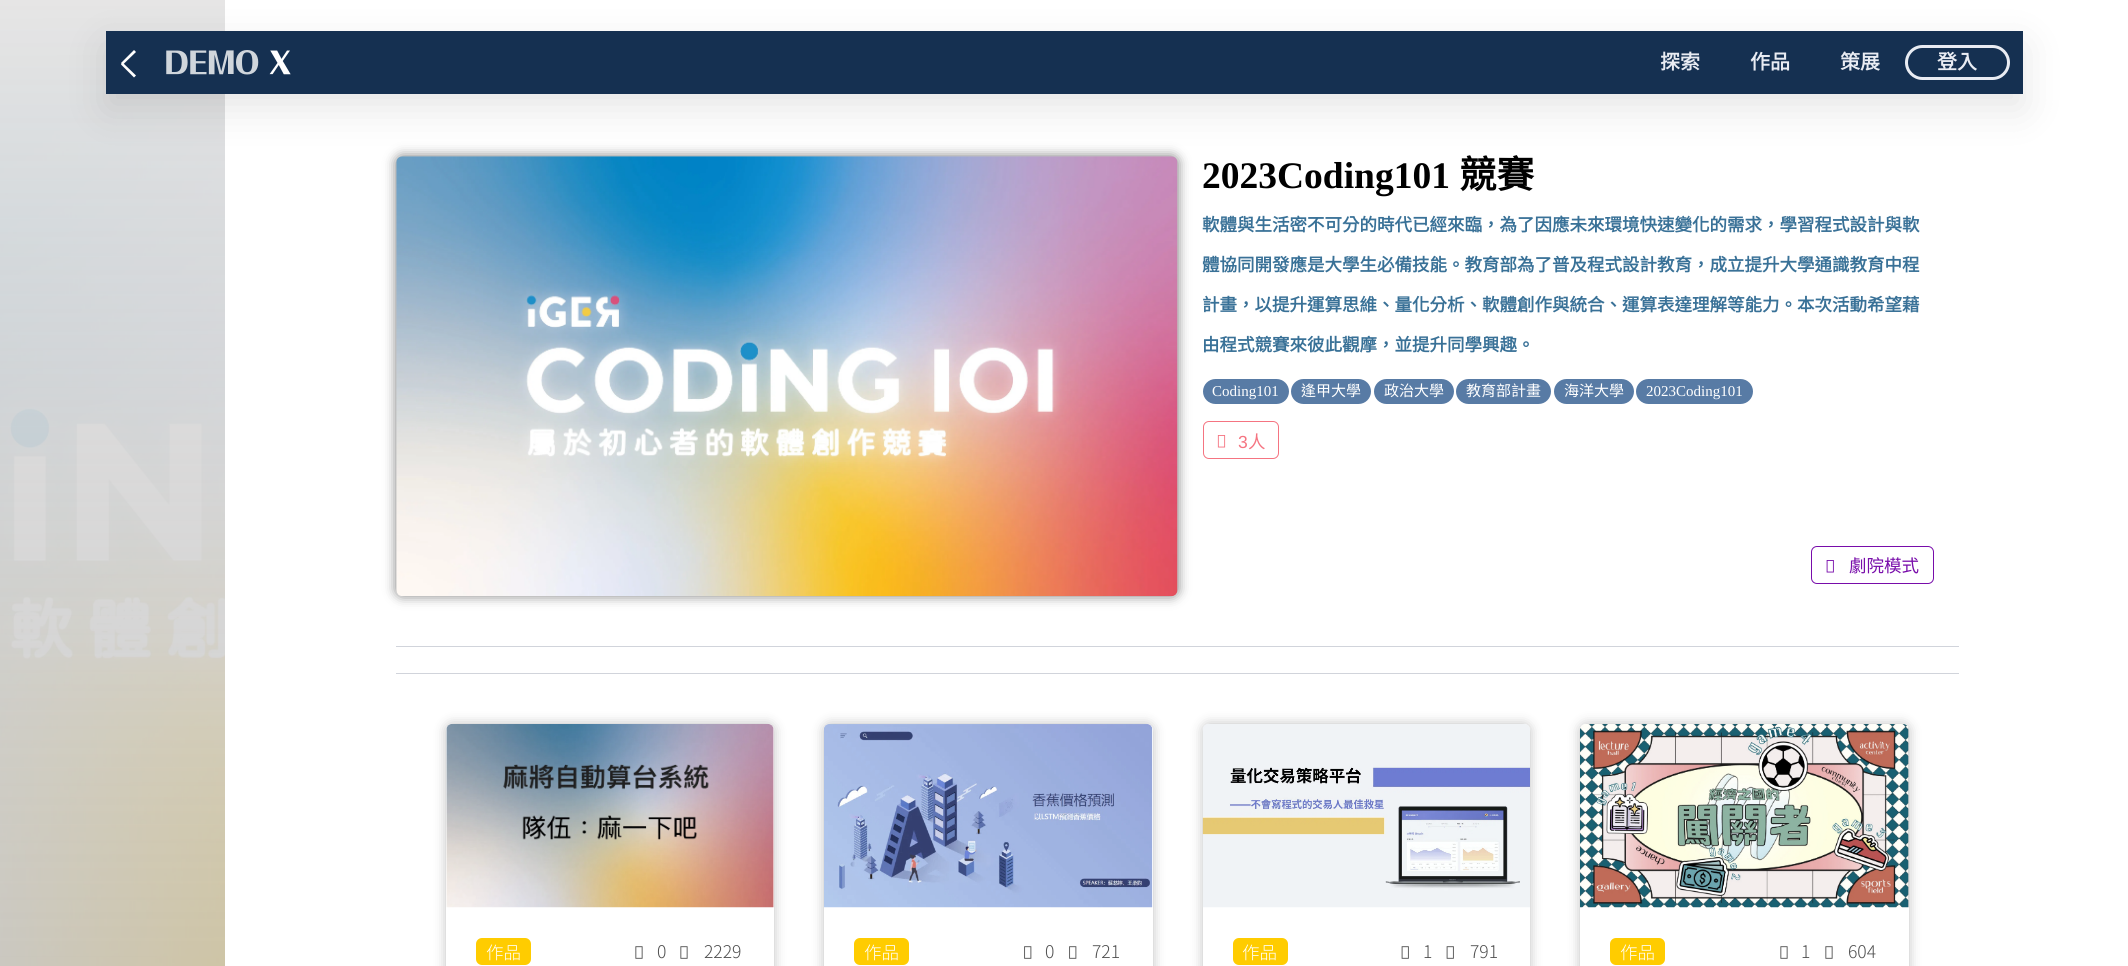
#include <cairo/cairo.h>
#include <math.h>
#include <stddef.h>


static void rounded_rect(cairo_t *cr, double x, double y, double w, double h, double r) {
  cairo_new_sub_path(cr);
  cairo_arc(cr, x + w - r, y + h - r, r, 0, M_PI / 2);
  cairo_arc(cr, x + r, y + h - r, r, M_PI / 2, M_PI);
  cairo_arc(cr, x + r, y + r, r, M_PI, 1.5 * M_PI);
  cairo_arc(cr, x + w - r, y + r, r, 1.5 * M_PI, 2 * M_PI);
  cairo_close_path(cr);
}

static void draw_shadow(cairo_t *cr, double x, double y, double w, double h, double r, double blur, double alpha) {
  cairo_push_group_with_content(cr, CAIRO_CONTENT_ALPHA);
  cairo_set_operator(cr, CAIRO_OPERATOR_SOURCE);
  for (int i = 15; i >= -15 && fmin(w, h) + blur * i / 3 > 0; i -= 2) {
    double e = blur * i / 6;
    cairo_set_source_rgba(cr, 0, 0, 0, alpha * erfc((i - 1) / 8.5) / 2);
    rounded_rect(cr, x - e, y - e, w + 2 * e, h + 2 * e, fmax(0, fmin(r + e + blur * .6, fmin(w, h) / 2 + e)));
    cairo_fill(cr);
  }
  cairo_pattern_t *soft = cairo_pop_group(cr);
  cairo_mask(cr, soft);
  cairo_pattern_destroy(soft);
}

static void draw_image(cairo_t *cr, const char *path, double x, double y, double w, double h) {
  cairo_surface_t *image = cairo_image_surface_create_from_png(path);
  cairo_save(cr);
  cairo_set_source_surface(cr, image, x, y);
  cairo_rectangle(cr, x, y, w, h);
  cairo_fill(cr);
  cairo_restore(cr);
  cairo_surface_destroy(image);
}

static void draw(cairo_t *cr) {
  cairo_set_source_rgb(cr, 1, 1, 1);
  cairo_paint(cr);
  draw_image(cr, "images/2.png", 0, 0, 225, 966);
  cairo_set_source_rgb(cr, 0, 0, 0);
  draw_shadow(cr, 396, 156, 782, 440, 6, 6, 0.5);
  draw_image(cr, "images/3.png", 396, 156, 782, 441);
  draw_shadow(cr, 106, 46, 1917, 63, 0, 20, 0.1);
  cairo_set_source_rgb(cr, 21 / 255.0, 48 / 255.0, 81 / 255.0);
  cairo_rectangle(cr, 106, 31, 1917, 63);
  cairo_fill(cr);
  cairo_set_source_rgb(cr, 1, 1, 1);
  cairo_new_path(cr);
  cairo_move_to(cr, 121, 63);
  cairo_line_to(cr, 134, 50);
  cairo_line_to(cr, 136, 52);
  cairo_line_to(cr, 122.5, 65);
  cairo_close_path(cr);
  cairo_fill(cr);
  cairo_new_path(cr);
  cairo_move_to(cr, 122.5, 62.5);
  cairo_line_to(cr, 136, 75.5);
  cairo_line_to(cr, 134, 77.5);
  cairo_line_to(cr, 121, 64.5);
  cairo_close_path(cr);
  cairo_fill(cr);
  draw_image(cr, "images/1.png", 166, 50, 125, 25);
  rounded_rect(cr, 1906.5, 46.5, 102, 32, 16);
  cairo_set_source_rgb(cr, 233 / 255.0, 236 / 255.0, 243 / 255.0);
  cairo_set_line_width(cr, 3);
  cairo_stroke(cr);
  cairo_set_source_rgb(cr, 88 / 255.0, 123 / 255.0, 165 / 255.0);
  rounded_rect(cr, 1203, 379, 86, 25, 12.5);
  cairo_fill(cr);
  rounded_rect(cr, 1291, 379, 80, 25, 12.5);
  cairo_fill(cr);
  rounded_rect(cr, 1374, 379, 80, 25, 12.5);
  cairo_fill(cr);
  rounded_rect(cr, 1456, 379, 95, 25, 12.5);
  cairo_fill(cr);
  rounded_rect(cr, 1554, 379, 80, 25, 12.5);
  cairo_fill(cr);
  rounded_rect(cr, 1636, 379, 117, 25, 12.5);
  cairo_fill(cr);
  rounded_rect(cr, 1203.5, 421.5, 75, 37, 5.5);
  cairo_set_source_rgb(cr, 245 / 255.0, 116 / 255.0, 129 / 255.0);
  cairo_set_line_width(cr, 1);
  cairo_stroke(cr);
  draw_image(cr, "images/4.png", 1217, 435, 9, 13);
  rounded_rect(cr, 1811.5, 546.5, 122, 37, 5.5);
  cairo_set_source_rgb(cr, 120 / 255.0, 12 / 255.0, 170 / 255.0);
  cairo_stroke(cr);
  draw_image(cr, "images/5.png", 1826, 560, 8, 13);
  cairo_set_source_rgb(cr, 209 / 255.0, 212 / 255.0, 219 / 255.0);
  cairo_rectangle(cr, 396, 646, 1563, 1);
  cairo_fill(cr);
  cairo_rectangle(cr, 396, 673, 1563, 1);
  cairo_fill(cr);
  cairo_set_source_rgb(cr, 0, 0, 0);
  draw_shadow(cr, 446, 724, 328, 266, 6, 6, 0.25);
  cairo_set_source_rgb(cr, 1, 1, 1);
  rounded_rect(cr, 446, 724, 328, 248, 6);
  cairo_fill(cr);
  draw_image(cr, "images/6.png", 446, 724, 328, 184);
  cairo_set_source_rgb(cr, 1, 204 / 255.0, 0);
  rounded_rect(cr, 476, 938, 55, 27, 6);
  cairo_fill(cr);
  draw_image(cr, "images/7.png", 635, 946, 8, 13);
  draw_image(cr, "images/7.png", 680, 946, 8, 13);
  cairo_set_source_rgb(cr, 0, 0, 0);
  draw_shadow(cr, 824, 724, 329, 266, 6, 6, 0.25);
  cairo_set_source_rgb(cr, 1, 1, 1);
  rounded_rect(cr, 824, 724, 329, 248, 6);
  cairo_fill(cr);
  draw_image(cr, "images/8.png", 824, 724, 329, 184);
  cairo_set_source_rgb(cr, 1, 204 / 255.0, 0);
  rounded_rect(cr, 854, 938, 55, 27, 6);
  cairo_fill(cr);
  draw_image(cr, "images/9.png", 1024, 946, 8, 13);
  draw_image(cr, "images/9.png", 1069, 946, 8, 13);
  cairo_set_source_rgb(cr, 0, 0, 0);
  draw_shadow(cr, 1203, 724, 327, 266, 6, 6, 0.25);
  cairo_set_source_rgb(cr, 1, 1, 1);
  rounded_rect(cr, 1203, 724, 327, 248, 6);
  cairo_fill(cr);
  draw_image(cr, "images/10.png", 1202, 724, 328, 184);
  cairo_set_source_rgb(cr, 1, 204 / 255.0, 0);
  rounded_rect(cr, 1233, 938, 55, 27, 6);
  cairo_fill(cr);
  draw_image(cr, "images/11.png", 1401, 946, 8, 13);
  draw_image(cr, "images/11.png", 1446, 946, 8, 13);
  cairo_set_source_rgb(cr, 0, 0, 0);
  draw_shadow(cr, 1580, 724, 329, 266, 6, 6, 0.25);
  cairo_set_source_rgb(cr, 1, 1, 1);
  rounded_rect(cr, 1580, 724, 329, 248, 6);
  cairo_fill(cr);
  draw_image(cr, "images/12.png", 1580, 724, 329, 184);
  cairo_set_source_rgb(cr, 1, 204 / 255.0, 0);
  rounded_rect(cr, 1610, 938, 55, 27, 6);
  cairo_fill(cr);
  draw_image(cr, "images/7.png", 1780, 946, 8, 13);
  draw_image(cr, "images/7.png", 1825, 946, 8, 13);
  cairo_select_font_face(cr, "Noto Sans CJK TC", CAIRO_FONT_SLANT_NORMAL, CAIRO_FONT_WEIGHT_BOLD);
  cairo_set_font_size(cr, 20);
  cairo_set_source_rgb(cr, 233 / 255.0, 236 / 255.0, 243 / 255.0);
  cairo_move_to(cr, 1660, 69);
  cairo_show_text(cr, "探索");
  cairo_move_to(cr, 1750, 69);
  cairo_show_text(cr, "作品");
  cairo_move_to(cr, 1840, 69);
  cairo_show_text(cr, "策展");
  cairo_move_to(cr, 1937, 69);
  cairo_show_text(cr, "登入");
  cairo_select_font_face(cr, "Liberation Serif", CAIRO_FONT_SLANT_NORMAL, CAIRO_FONT_WEIGHT_BOLD);
  cairo_set_font_size(cr, 37.5);
  cairo_set_source_rgb(cr, 0, 0, 0);
  cairo_move_to(cr, 1202, 188);
  cairo_show_text(cr, "2023Coding101");
  cairo_select_font_face(cr, "Noto Sans CJK TC", CAIRO_FONT_SLANT_NORMAL, CAIRO_FONT_WEIGHT_BOLD);
  cairo_move_to(cr, 1459, 188);
  cairo_show_text(cr, "競賽");
  cairo_set_font_size(cr, 17.5);
  cairo_set_source_rgb(cr, 57 / 255.0, 113 / 255.0, 151 / 255.0);
  cairo_move_to(cr, 1202, 231);
  cairo_show_text(cr, "軟體與生活密不可分的時代已經來臨，為了因應未來環境快速變化的需求，學習程式設計與軟");
  cairo_move_to(cr, 1202, 271);
  cairo_show_text(cr, "體協同開發應是大學生必備技能。教育部為了普及程式設計教育，成立提升大學通識教育中程");
  cairo_move_to(cr, 1202, 311);
  cairo_show_text(cr, "計畫，以提升運算思維、量化分析、軟體創作與統合、運算表達理解等能力。本次活動希望藉");
  cairo_move_to(cr, 1202, 351);
  cairo_show_text(cr, "由程式競賽來彼此觀摩，並提升同學興趣。");
  cairo_select_font_face(cr, "Liberation Serif", CAIRO_FONT_SLANT_NORMAL, CAIRO_FONT_WEIGHT_NORMAL);
  cairo_set_font_size(cr, 15);
  cairo_set_source_rgb(cr, 1, 1, 1);
  cairo_move_to(cr, 1212, 396);
  cairo_show_text(cr, "Coding101");
  cairo_select_font_face(cr, "Noto Sans CJK TC", CAIRO_FONT_SLANT_NORMAL, CAIRO_FONT_WEIGHT_NORMAL);
  cairo_move_to(cr, 1301, 396);
  cairo_show_text(cr, "逢甲大學");
  cairo_move_to(cr, 1384, 396);
  cairo_show_text(cr, "政治大學");
  cairo_move_to(cr, 1466, 396);
  cairo_show_text(cr, "教育部計畫");
  cairo_move_to(cr, 1564, 396);
  cairo_show_text(cr, "海洋大學");
  cairo_select_font_face(cr, "Liberation Serif", CAIRO_FONT_SLANT_NORMAL, CAIRO_FONT_WEIGHT_NORMAL);
  cairo_move_to(cr, 1646, 396);
  cairo_show_text(cr, "2023Coding101");
  cairo_select_font_face(cr, "Liberation Sans", CAIRO_FONT_SLANT_NORMAL, CAIRO_FONT_WEIGHT_NORMAL);
  cairo_set_font_size(cr, 17.5);
  cairo_set_source_rgb(cr, 245 / 255.0, 116 / 255.0, 129 / 255.0);
  cairo_move_to(cr, 1238, 448);
  cairo_show_text(cr, "3");
  cairo_select_font_face(cr, "Noto Sans CJK TC", CAIRO_FONT_SLANT_NORMAL, CAIRO_FONT_WEIGHT_NORMAL);
  cairo_move_to(cr, 1248, 448);
  cairo_show_text(cr, "人");
  cairo_set_source_rgb(cr, 120 / 255.0, 12 / 255.0, 170 / 255.0);
  cairo_move_to(cr, 1849, 572);
  cairo_show_text(cr, "劇院模式");
  cairo_select_font_face(cr, "Noto Sans TC Light", CAIRO_FONT_SLANT_NORMAL, CAIRO_FONT_WEIGHT_NORMAL);
  cairo_set_source_rgb(cr, 1, 1, 1);
  cairo_move_to(cr, 486, 959);
  cairo_show_text(cr, "作品");
  cairo_set_source_rgb(cr, 80 / 255.0, 80 / 255.0, 80 / 255.0);
  cairo_move_to(cr, 657, 958);
  cairo_show_text(cr, "0");
  cairo_move_to(cr, 704, 958);
  cairo_show_text(cr, "2229");
  cairo_set_source_rgb(cr, 1, 1, 1);
  cairo_move_to(cr, 864, 959);
  cairo_show_text(cr, "作品");
  cairo_set_source_rgb(cr, 80 / 255.0, 80 / 255.0, 80 / 255.0);
  cairo_move_to(cr, 1045, 958);
  cairo_show_text(cr, "0");
  cairo_move_to(cr, 1092, 958);
  cairo_show_text(cr, "721");
  cairo_set_source_rgb(cr, 1, 1, 1);
  cairo_move_to(cr, 1242, 959);
  cairo_show_text(cr, "作品");
  cairo_set_source_rgb(cr, 80 / 255.0, 80 / 255.0, 80 / 255.0);
  cairo_move_to(cr, 1423, 958);
  cairo_show_text(cr, "1");
  cairo_move_to(cr, 1470, 958);
  cairo_show_text(cr, "791");
  cairo_set_source_rgb(cr, 1, 1, 1);
  cairo_move_to(cr, 1620, 959);
  cairo_show_text(cr, "作品");
  cairo_set_source_rgb(cr, 80 / 255.0, 80 / 255.0, 80 / 255.0);
  cairo_move_to(cr, 1801, 958);
  cairo_show_text(cr, "1");
  cairo_move_to(cr, 1848, 958);
  cairo_show_text(cr, "604");
}

int main(void) {
  cairo_surface_t *surface = cairo_image_surface_create(CAIRO_FORMAT_RGB24, 2128, 966);
  cairo_t *cr = cairo_create(surface);
  cairo_font_options_t *options = cairo_font_options_create();
  cairo_font_options_set_hint_metrics(options, CAIRO_HINT_METRICS_OFF);
  cairo_font_options_set_hint_style(options, CAIRO_HINT_STYLE_NONE);
  cairo_set_font_options(cr, options);
  cairo_set_miter_limit(cr, 4);
  draw(cr);
  cairo_surface_write_to_png(surface, "out.png");
  cairo_font_options_destroy(options);
  cairo_destroy(cr);
  cairo_surface_destroy(surface);
  return 0;
}
